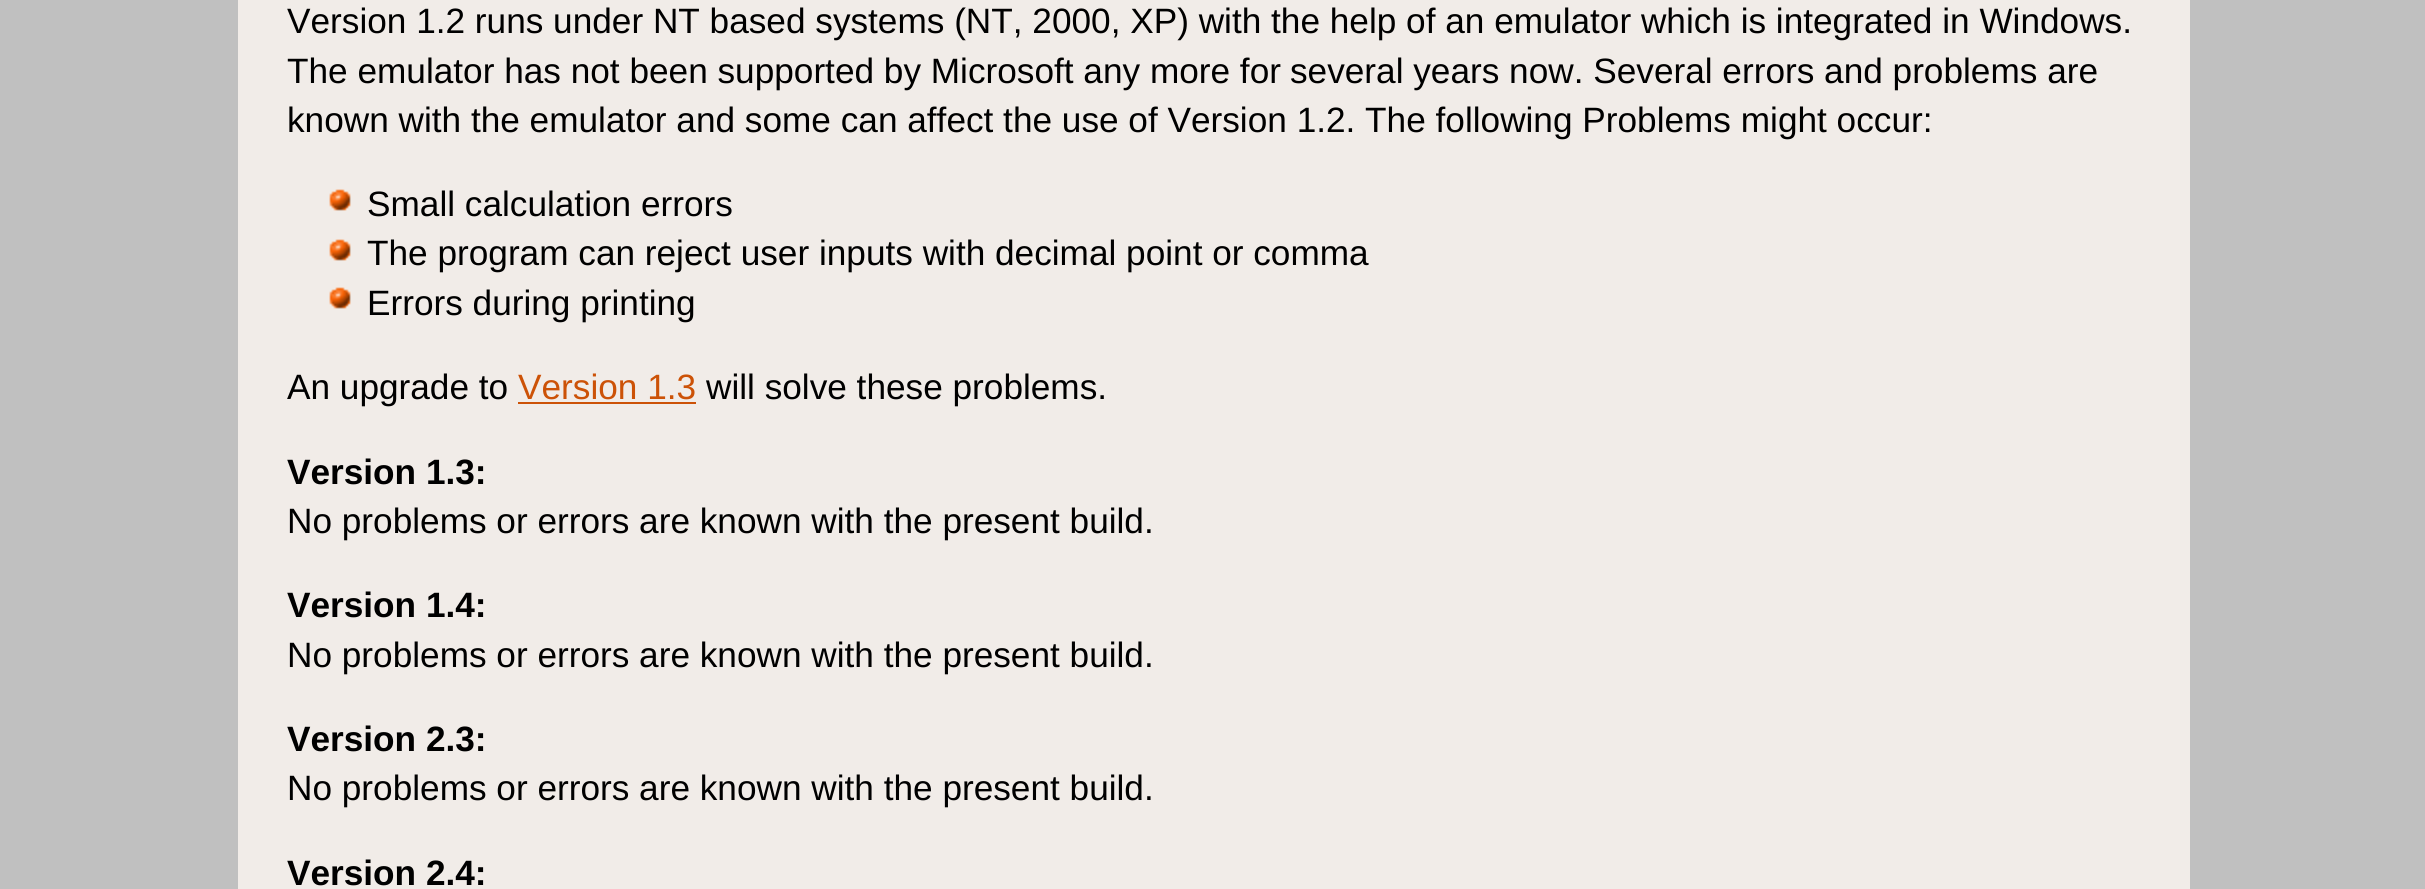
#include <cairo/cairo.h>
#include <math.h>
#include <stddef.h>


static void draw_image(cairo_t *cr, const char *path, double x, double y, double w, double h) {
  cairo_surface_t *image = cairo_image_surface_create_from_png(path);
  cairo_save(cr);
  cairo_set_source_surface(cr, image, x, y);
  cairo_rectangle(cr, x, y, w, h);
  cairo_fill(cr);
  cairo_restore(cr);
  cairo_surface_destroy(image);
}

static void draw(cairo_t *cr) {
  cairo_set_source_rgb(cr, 192 / 255.0, 192 / 255.0, 192 / 255.0);
  cairo_paint(cr);
  cairo_set_source_rgb(cr, 241 / 255.0, 236 / 255.0, 232 / 255.0);
  cairo_rectangle(cr, 238, 0, 1952, 889);
  cairo_fill(cr);
  draw_image(cr, "images/1.png", 329, 189, 22, 22);
  draw_image(cr, "images/1.png", 329, 239, 22, 22);
  draw_image(cr, "images/1.png", 329, 287, 22, 22);
  cairo_set_source_rgb(cr, 204 / 255.0, 82 / 255.0, 7 / 255.0);
  cairo_rectangle(cr, 518, 402, 178, 2);
  cairo_fill(cr);
  cairo_select_font_face(cr, "Liberation Sans", CAIRO_FONT_SLANT_NORMAL, CAIRO_FONT_WEIGHT_NORMAL);
  cairo_set_font_size(cr, 35.2);
  cairo_set_source_rgb(cr, 0, 0, 0);
  cairo_move_to(cr, 287, 33);
  cairo_show_text(cr, "Version 1.2 runs under NT based systems (NT, 2000, XP) with the help of an emulator which is integrated in Windows.");
  cairo_move_to(cr, 287, 83);
  cairo_show_text(cr, "The emulator has not been supported by Microsoft any more for");
  cairo_move_to(cr, 1290, 83);
  cairo_show_text(cr, "several years now. Several errors and problems are");
  cairo_move_to(cr, 287, 132);
  cairo_show_text(cr, "known with the emulator and some can affect the use of Version 1.2. The following Problems might occur:");
  cairo_move_to(cr, 367, 216);
  cairo_show_text(cr, "Small calculation errors");
  cairo_move_to(cr, 367, 265);
  cairo_show_text(cr, "The program can reject user inputs with decimal point or comma");
  cairo_move_to(cr, 367, 315);
  cairo_show_text(cr, "Errors during printing");
  cairo_move_to(cr, 287, 399);
  cairo_show_text(cr, "An upgrade to");
  cairo_set_source_rgb(cr, 204 / 255.0, 82 / 255.0, 7 / 255.0);
  cairo_move_to(cr, 518, 399);
  cairo_show_text(cr, "Version 1.3");
  cairo_set_source_rgb(cr, 0, 0, 0);
  cairo_move_to(cr, 706, 399);
  cairo_show_text(cr, "will solve these problems.");
  cairo_select_font_face(cr, "Liberation Sans", CAIRO_FONT_SLANT_NORMAL, CAIRO_FONT_WEIGHT_BOLD);
  cairo_move_to(cr, 287, 484);
  cairo_show_text(cr, "Version 1.3:");
  cairo_select_font_face(cr, "Liberation Sans", CAIRO_FONT_SLANT_NORMAL, CAIRO_FONT_WEIGHT_NORMAL);
  cairo_move_to(cr, 287, 533);
  cairo_show_text(cr, "No problems or errors are known with the present build.");
  cairo_select_font_face(cr, "Liberation Sans", CAIRO_FONT_SLANT_NORMAL, CAIRO_FONT_WEIGHT_BOLD);
  cairo_move_to(cr, 287, 617);
  cairo_show_text(cr, "Version 1.4:");
  cairo_select_font_face(cr, "Liberation Sans", CAIRO_FONT_SLANT_NORMAL, CAIRO_FONT_WEIGHT_NORMAL);
  cairo_move_to(cr, 287, 667);
  cairo_show_text(cr, "No problems or errors are known with the present build.");
  cairo_select_font_face(cr, "Liberation Sans", CAIRO_FONT_SLANT_NORMAL, CAIRO_FONT_WEIGHT_BOLD);
  cairo_move_to(cr, 287, 751);
  cairo_show_text(cr, "Version 2.3:");
  cairo_select_font_face(cr, "Liberation Sans", CAIRO_FONT_SLANT_NORMAL, CAIRO_FONT_WEIGHT_NORMAL);
  cairo_move_to(cr, 287, 800);
  cairo_show_text(cr, "No problems or errors are known with the present build.");
  cairo_select_font_face(cr, "Liberation Sans", CAIRO_FONT_SLANT_NORMAL, CAIRO_FONT_WEIGHT_BOLD);
  cairo_move_to(cr, 287, 885);
  cairo_show_text(cr, "Version 2.4:");
}

int main(void) {
  cairo_surface_t *surface = cairo_image_surface_create(CAIRO_FORMAT_RGB24, 2425, 889);
  cairo_t *cr = cairo_create(surface);
  cairo_font_options_t *options = cairo_font_options_create();
  cairo_font_options_set_hint_metrics(options, CAIRO_HINT_METRICS_OFF);
  cairo_font_options_set_hint_style(options, CAIRO_HINT_STYLE_NONE);
  cairo_set_font_options(cr, options);
  cairo_set_miter_limit(cr, 4);
  draw(cr);
  cairo_surface_write_to_png(surface, "out.png");
  cairo_font_options_destroy(options);
  cairo_destroy(cr);
  cairo_surface_destroy(surface);
  return 0;
}
